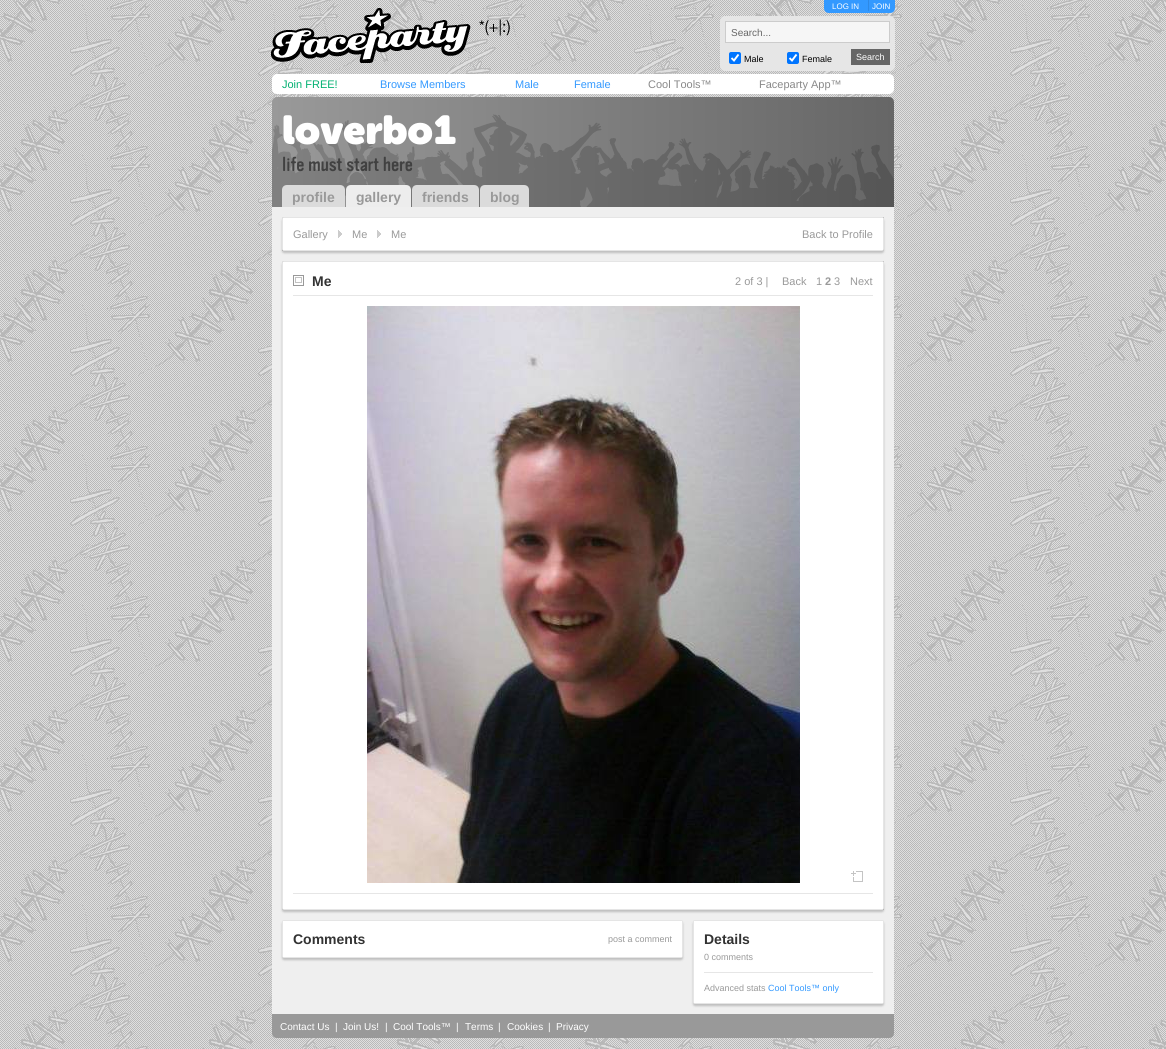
#include <cairo/cairo.h>
#include <math.h>
#include <stddef.h>


static void rounded_rect(cairo_t *cr, double x, double y, double w, double h, double r) {
  cairo_new_sub_path(cr);
  cairo_arc(cr, x + w - r, y + h - r, r, 0, M_PI / 2);
  cairo_arc(cr, x + r, y + h - r, r, M_PI / 2, M_PI);
  cairo_arc(cr, x + r, y + r, r, M_PI, 1.5 * M_PI);
  cairo_arc(cr, x + w - r, y + r, r, 1.5 * M_PI, 2 * M_PI);
  cairo_close_path(cr);
}

static void draw_shadow(cairo_t *cr, double x, double y, double w, double h, double r, double blur, double alpha) {
  cairo_push_group_with_content(cr, CAIRO_CONTENT_ALPHA);
  cairo_set_operator(cr, CAIRO_OPERATOR_SOURCE);
  for (int i = 15; i >= -15 && fmin(w, h) + blur * i / 3 > 0; i -= 2) {
    double e = blur * i / 6;
    cairo_set_source_rgba(cr, 0, 0, 0, alpha * erfc((i - 1) / 8.5) / 2);
    rounded_rect(cr, x - e, y - e, w + 2 * e, h + 2 * e, fmax(0, fmin(r + e + blur * .6, fmin(w, h) / 2 + e)));
    cairo_fill(cr);
  }
  cairo_pattern_t *soft = cairo_pop_group(cr);
  cairo_mask(cr, soft);
  cairo_pattern_destroy(soft);
}

static void draw_image(cairo_t *cr, const char *path, double x, double y, double w, double h) {
  cairo_surface_t *image = cairo_image_surface_create_from_png(path);
  cairo_save(cr);
  cairo_set_source_surface(cr, image, x, y);
  cairo_rectangle(cr, x, y, w, h);
  cairo_fill(cr);
  cairo_restore(cr);
  cairo_surface_destroy(image);
}

static void draw(cairo_t *cr) {
  cairo_set_source_rgb(cr, 1, 1, 1);
  cairo_paint(cr);
  draw_image(cr, "images/1.png", 0, 0, 1166, 1049);
  draw_image(cr, "images/2.png", 271, 8, 239, 55);
  cairo_set_source_rgb(cr, 51 / 255.0, 153 / 255.0, 1);
  cairo_new_path(cr);
  cairo_move_to(cr, 824, 0);
  cairo_line_to(cr, 895, 0);
  cairo_line_to(cr, 895, 8);
  cairo_curve_to(cr, 895, 11, 893, 13, 890, 13);
  cairo_line_to(cr, 829, 13);
  cairo_curve_to(cr, 826, 13, 824, 11, 824, 8);
  cairo_close_path(cr);
  cairo_fill(cr);
  cairo_set_source_rgb(cr, 46 / 255.0, 137 / 255.0, 229 / 255.0);
  cairo_rectangle(cr, 868, 0, 1, 11);
  cairo_fill(cr);
  cairo_set_source_rgb(cr, 230 / 255.0, 230 / 255.0, 230 / 255.0);
  rounded_rect(cr, 720, 16, 175, 55, 5);
  cairo_fill(cr);
  cairo_set_source_rgb(cr, 246 / 255.0, 246 / 255.0, 246 / 255.0);
  cairo_rectangle(cr, 725.5, 21.5, 164, 21);
  cairo_fill_preserve(cr);
  cairo_set_source_rgb(cr, 204 / 255.0, 204 / 255.0, 204 / 255.0);
  cairo_set_line_width(cr, 1);
  cairo_stroke(cr);
  cairo_set_source_rgb(cr, 0, 117 / 255.0, 1);
  rounded_rect(cr, 729, 52, 12, 12, 2);
  cairo_fill(cr);
  cairo_new_path(cr);
  cairo_move_to(cr, 731.5, 58);
  cairo_line_to(cr, 734, 60.5);
  cairo_line_to(cr, 738.5, 54.5);
  cairo_set_source_rgb(cr, 1, 1, 1);
  cairo_set_line_width(cr, 1.9);
  cairo_stroke(cr);
  cairo_set_source_rgb(cr, 0, 117 / 255.0, 1);
  rounded_rect(cr, 787, 52, 12, 12, 2);
  cairo_fill(cr);
  cairo_new_path(cr);
  cairo_move_to(cr, 789.5, 58);
  cairo_line_to(cr, 792, 60.5);
  cairo_line_to(cr, 796.5, 54.5);
  cairo_set_source_rgb(cr, 1, 1, 1);
  cairo_stroke(cr);
  cairo_set_source_rgb(cr, 102 / 255.0, 102 / 255.0, 102 / 255.0);
  cairo_rectangle(cr, 851, 49, 39, 16);
  cairo_fill(cr);
  cairo_set_source_rgb(cr, 1, 1, 1);
  rounded_rect(cr, 272, 74, 622, 20, 5);
  cairo_fill(cr);
  draw_image(cr, "images/3.png", 272, 97, 622, 110);
  cairo_set_source_rgb(cr, 219 / 255.0, 219 / 255.0, 219 / 255.0);
  cairo_new_path(cr);
  cairo_move_to(cr, 287, 185);
  cairo_line_to(cr, 340, 185);
  cairo_curve_to(cr, 343, 185, 345, 187, 345, 190);
  cairo_line_to(cr, 345, 207);
  cairo_line_to(cr, 282, 207);
  cairo_line_to(cr, 282, 190);
  cairo_curve_to(cr, 282, 187, 284, 185, 287, 185);
  cairo_close_path(cr);
  cairo_fill(cr);
  cairo_set_source_rgb(cr, 237 / 255.0, 237 / 255.0, 237 / 255.0);
  cairo_new_path(cr);
  cairo_move_to(cr, 351, 185);
  cairo_line_to(cr, 406, 185);
  cairo_curve_to(cr, 409, 185, 411, 187, 411, 190);
  cairo_line_to(cr, 411, 207);
  cairo_line_to(cr, 346, 207);
  cairo_line_to(cr, 346, 190);
  cairo_curve_to(cr, 346, 187, 348, 185, 351, 185);
  cairo_close_path(cr);
  cairo_fill(cr);
  cairo_set_source_rgb(cr, 219 / 255.0, 219 / 255.0, 219 / 255.0);
  cairo_new_path(cr);
  cairo_move_to(cr, 417, 185);
  cairo_line_to(cr, 474, 185);
  cairo_curve_to(cr, 477, 185, 479, 187, 479, 190);
  cairo_line_to(cr, 479, 207);
  cairo_line_to(cr, 412, 207);
  cairo_line_to(cr, 412, 190);
  cairo_curve_to(cr, 412, 187, 414, 185, 417, 185);
  cairo_close_path(cr);
  cairo_fill(cr);
  cairo_new_path(cr);
  cairo_move_to(cr, 485, 185);
  cairo_line_to(cr, 524, 185);
  cairo_curve_to(cr, 527, 185, 529, 187, 529, 190);
  cairo_line_to(cr, 529, 207);
  cairo_line_to(cr, 480, 207);
  cairo_line_to(cr, 480, 190);
  cairo_curve_to(cr, 480, 187, 482, 185, 485, 185);
  cairo_close_path(cr);
  cairo_fill(cr);
  cairo_set_source_rgb(cr, 239 / 255.0, 239 / 255.0, 239 / 255.0);
  cairo_rectangle(cr, 272, 207, 622, 10);
  cairo_fill(cr);
  cairo_rectangle(cr, 272, 217, 10, 34);
  cairo_fill(cr);
  cairo_rectangle(cr, 884, 217, 10, 34);
  cairo_fill(cr);
  cairo_rectangle(cr, 272, 251, 622, 10);
  cairo_fill(cr);
  cairo_set_source_rgb(cr, 0, 0, 0);
  draw_shadow(cr, 282, 219, 602, 34, 2, 1, 0.2);
  rounded_rect(cr, 282.5, 217.5, 601, 33, 1.5);
  cairo_set_source_rgb(cr, 229 / 255.0, 229 / 255.0, 229 / 255.0);
  cairo_set_line_width(cr, 1);
  cairo_stroke(cr);
  cairo_set_source_rgb(cr, 1, 1, 1);
  cairo_rectangle(cr, 283, 218, 600, 32);
  cairo_fill(cr);
  draw_image(cr, "images/4.png", 338, 230, 4, 8);
  draw_image(cr, "images/4.png", 377, 230, 4, 8);
  cairo_set_source_rgb(cr, 239 / 255.0, 239 / 255.0, 239 / 255.0);
  cairo_rectangle(cr, 272, 261, 10, 649);
  cairo_fill(cr);
  cairo_rectangle(cr, 884, 261, 10, 649);
  cairo_fill(cr);
  cairo_rectangle(cr, 272, 910, 622, 10);
  cairo_fill(cr);
  cairo_set_source_rgb(cr, 0, 0, 0);
  draw_shadow(cr, 282, 263, 602, 649, 2, 1, 0.2);
  rounded_rect(cr, 282.5, 261.5, 601, 648, 1.5);
  cairo_set_source_rgb(cr, 229 / 255.0, 229 / 255.0, 229 / 255.0);
  cairo_stroke(cr);
  cairo_set_source_rgb(cr, 1, 1, 1);
  cairo_rectangle(cr, 283, 262, 600, 647);
  cairo_fill(cr);
  draw_image(cr, "images/5.png", 293, 275, 11, 11);
  cairo_set_source_rgb(cr, 230 / 255.0, 230 / 255.0, 230 / 255.0);
  cairo_rectangle(cr, 293, 295, 580, 1);
  cairo_fill(cr);
  draw_image(cr, "images/6.png", 367, 306, 433, 577);
  draw_image(cr, "images/7.png", 851, 871, 12, 11);
  cairo_rectangle(cr, 293, 893, 580, 1);
  cairo_fill(cr);
  cairo_set_source_rgb(cr, 239 / 255.0, 239 / 255.0, 239 / 255.0);
  cairo_rectangle(cr, 272, 920, 622, 94);
  cairo_fill(cr);
  cairo_set_source_rgb(cr, 0, 0, 0);
  draw_shadow(cr, 282, 922, 401, 38, 2, 1, 0.2);
  rounded_rect(cr, 282.5, 920.5, 400, 37, 1.5);
  cairo_set_source_rgb(cr, 229 / 255.0, 229 / 255.0, 229 / 255.0);
  cairo_stroke(cr);
  cairo_set_source_rgb(cr, 1, 1, 1);
  cairo_rectangle(cr, 283, 921, 399, 36);
  cairo_fill(cr);
  cairo_set_source_rgb(cr, 0, 0, 0);
  draw_shadow(cr, 693, 922, 191, 84, 2, 1, 0.2);
  rounded_rect(cr, 693.5, 920.5, 190, 83, 1.5);
  cairo_set_source_rgb(cr, 229 / 255.0, 229 / 255.0, 229 / 255.0);
  cairo_stroke(cr);
  cairo_set_source_rgb(cr, 1, 1, 1);
  cairo_rectangle(cr, 694, 921, 189, 82);
  cairo_fill(cr);
  cairo_set_source_rgb(cr, 230 / 255.0, 230 / 255.0, 230 / 255.0);
  cairo_rectangle(cr, 704, 972, 169, 1);
  cairo_fill(cr);
  cairo_set_source_rgb(cr, 153 / 255.0, 153 / 255.0, 153 / 255.0);
  cairo_new_path(cr);
  cairo_move_to(cr, 272, 1014);
  cairo_line_to(cr, 894, 1014);
  cairo_line_to(cr, 894, 1033);
  cairo_curve_to(cr, 894, 1036, 892, 1038, 889, 1038);
  cairo_line_to(cr, 277, 1038);
  cairo_curve_to(cr, 274, 1038, 272, 1036, 272, 1033);
  cairo_close_path(cr);
  cairo_fill(cr);
  cairo_select_font_face(cr, "Liberation Sans", CAIRO_FONT_SLANT_NORMAL, CAIRO_FONT_WEIGHT_NORMAL);
  cairo_set_font_size(cr, 8);
  cairo_set_source_rgb(cr, 1, 1, 1);
  cairo_move_to(cr, 832, 9);
  cairo_show_text(cr, "LOG IN");
  cairo_move_to(cr, 872, 9);
  cairo_show_text(cr, "JOIN");
  cairo_set_font_size(cr, 10);
  cairo_set_source_rgb(cr, 102 / 255.0, 102 / 255.0, 102 / 255.0);
  cairo_move_to(cr, 731, 36);
  cairo_show_text(cr, "Search...");
  cairo_set_font_size(cr, 9);
  cairo_set_source_rgb(cr, 0, 0, 0);
  cairo_move_to(cr, 744, 62);
  cairo_show_text(cr, "Male");
  cairo_move_to(cr, 802, 62);
  cairo_show_text(cr, "Female");
  cairo_set_source_rgb(cr, 1, 1, 1);
  cairo_move_to(cr, 856, 60);
  cairo_show_text(cr, "Search");
  cairo_set_font_size(cr, 11);
  cairo_set_source_rgb(cr, 0, 176 / 255.0, 112 / 255.0);
  cairo_move_to(cr, 282, 88);
  cairo_show_text(cr, "Join FREE!");
  cairo_set_source_rgb(cr, 51 / 255.0, 153 / 255.0, 1);
  cairo_move_to(cr, 380, 88);
  cairo_show_text(cr, "Browse Members");
  cairo_move_to(cr, 515, 88);
  cairo_show_text(cr, "Male");
  cairo_move_to(cr, 574, 88);
  cairo_show_text(cr, "Female");
  cairo_set_source_rgb(cr, 136 / 255.0, 136 / 255.0, 136 / 255.0);
  cairo_move_to(cr, 648, 88);
  cairo_show_text(cr, "Cool Tools™");
  cairo_move_to(cr, 759, 88);
  cairo_show_text(cr, "Faceparty App™");
  cairo_select_font_face(cr, "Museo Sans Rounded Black", CAIRO_FONT_SLANT_NORMAL, CAIRO_FONT_WEIGHT_NORMAL);
  cairo_set_font_size(cr, 40);
  cairo_set_source_rgb(cr, 1, 1, 1);
  cairo_move_to(cr, 282, 144);
  cairo_show_text(cr, "loverbo1");
  cairo_select_font_face(cr, "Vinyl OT", CAIRO_FONT_SLANT_NORMAL, CAIRO_FONT_WEIGHT_NORMAL);
  cairo_set_font_size(cr, 20);
  cairo_set_source_rgb(cr, 65 / 255.0, 65 / 255.0, 65 / 255.0);
  cairo_move_to(cr, 282, 171);
  cairo_show_text(cr, "life must start here");
  cairo_select_font_face(cr, "Liberation Sans", CAIRO_FONT_SLANT_NORMAL, CAIRO_FONT_WEIGHT_BOLD);
  cairo_set_font_size(cr, 14);
  cairo_set_source_rgb(cr, 153 / 255.0, 153 / 255.0, 153 / 255.0);
  cairo_move_to(cr, 292, 202);
  cairo_show_text(cr, "profile");
  cairo_move_to(cr, 356, 202);
  cairo_show_text(cr, "gallery");
  cairo_move_to(cr, 422, 202);
  cairo_show_text(cr, "friends");
  cairo_move_to(cr, 490, 202);
  cairo_show_text(cr, "blog");
  cairo_select_font_face(cr, "Liberation Sans", CAIRO_FONT_SLANT_NORMAL, CAIRO_FONT_WEIGHT_NORMAL);
  cairo_set_font_size(cr, 11);
  cairo_move_to(cr, 293, 238);
  cairo_show_text(cr, "Gallery");
  cairo_move_to(cr, 352, 238);
  cairo_show_text(cr, "Me");
  cairo_move_to(cr, 391, 238);
  cairo_show_text(cr, "Me");
  cairo_move_to(cr, 802, 238);
  cairo_show_text(cr, "Back to Profile");
  cairo_select_font_face(cr, "Liberation Sans", CAIRO_FONT_SLANT_NORMAL, CAIRO_FONT_WEIGHT_BOLD);
  cairo_set_font_size(cr, 14);
  cairo_set_source_rgb(cr, 51 / 255.0, 51 / 255.0, 51 / 255.0);
  cairo_move_to(cr, 312, 286);
  cairo_show_text(cr, "Me");
  cairo_select_font_face(cr, "Liberation Sans", CAIRO_FONT_SLANT_NORMAL, CAIRO_FONT_WEIGHT_NORMAL);
  cairo_set_font_size(cr, 11);
  cairo_set_source_rgb(cr, 153 / 255.0, 153 / 255.0, 153 / 255.0);
  cairo_move_to(cr, 735, 285);
  cairo_show_text(cr, "2 of 3 |");
  cairo_move_to(cr, 782, 285);
  cairo_show_text(cr, "Back");
  cairo_move_to(cr, 816, 285);
  cairo_show_text(cr, "1");
  cairo_select_font_face(cr, "Liberation Sans", CAIRO_FONT_SLANT_NORMAL, CAIRO_FONT_WEIGHT_BOLD);
  cairo_move_to(cr, 825, 285);
  cairo_show_text(cr, "2");
  cairo_select_font_face(cr, "Liberation Sans", CAIRO_FONT_SLANT_NORMAL, CAIRO_FONT_WEIGHT_NORMAL);
  cairo_move_to(cr, 834, 285);
  cairo_show_text(cr, "3");
  cairo_move_to(cr, 850, 285);
  cairo_show_text(cr, "Next");
  cairo_select_font_face(cr, "Liberation Sans", CAIRO_FONT_SLANT_NORMAL, CAIRO_FONT_WEIGHT_BOLD);
  cairo_set_font_size(cr, 14);
  cairo_set_source_rgb(cr, 51 / 255.0, 51 / 255.0, 51 / 255.0);
  cairo_move_to(cr, 293, 944);
  cairo_show_text(cr, "Comments");
  cairo_select_font_face(cr, "Liberation Sans", CAIRO_FONT_SLANT_NORMAL, CAIRO_FONT_WEIGHT_NORMAL);
  cairo_set_font_size(cr, 9);
  cairo_set_source_rgb(cr, 153 / 255.0, 153 / 255.0, 153 / 255.0);
  cairo_move_to(cr, 608, 942);
  cairo_show_text(cr, "post a comment");
  cairo_select_font_face(cr, "Liberation Sans", CAIRO_FONT_SLANT_NORMAL, CAIRO_FONT_WEIGHT_BOLD);
  cairo_set_font_size(cr, 14);
  cairo_set_source_rgb(cr, 51 / 255.0, 51 / 255.0, 51 / 255.0);
  cairo_move_to(cr, 704, 944);
  cairo_show_text(cr, "Details");
  cairo_select_font_face(cr, "Liberation Sans", CAIRO_FONT_SLANT_NORMAL, CAIRO_FONT_WEIGHT_NORMAL);
  cairo_set_font_size(cr, 9);
  cairo_set_source_rgb(cr, 153 / 255.0, 153 / 255.0, 153 / 255.0);
  cairo_move_to(cr, 704, 960);
  cairo_show_text(cr, "0 comments");
  cairo_move_to(cr, 704, 991);
  cairo_show_text(cr, "Advanced stats");
  cairo_set_source_rgb(cr, 51 / 255.0, 153 / 255.0, 1);
  cairo_move_to(cr, 768, 991);
  cairo_show_text(cr, "Cool Tools™ only");
  cairo_set_font_size(cr, 10);
  cairo_set_source_rgb(cr, 1, 1, 1);
  cairo_move_to(cr, 280, 1030);
  cairo_show_text(cr, "Contact Us");
  cairo_move_to(cr, 335, 1030);
  cairo_show_text(cr, "|");
  cairo_move_to(cr, 343, 1030);
  cairo_show_text(cr, "Join Us!");
  cairo_move_to(cr, 385, 1030);
  cairo_show_text(cr, "|");
  cairo_move_to(cr, 393, 1030);
  cairo_show_text(cr, "Cool Tools™");
  cairo_move_to(cr, 456, 1030);
  cairo_show_text(cr, "|");
  cairo_move_to(cr, 465, 1030);
  cairo_show_text(cr, "Terms");
  cairo_move_to(cr, 498, 1030);
  cairo_show_text(cr, "|");
  cairo_move_to(cr, 507, 1030);
  cairo_show_text(cr, "Cookies");
  cairo_move_to(cr, 548, 1030);
  cairo_show_text(cr, "|");
  cairo_move_to(cr, 556, 1030);
  cairo_show_text(cr, "Privacy");
}

int main(void) {
  cairo_surface_t *surface = cairo_image_surface_create(CAIRO_FORMAT_RGB24, 1166, 1049);
  cairo_t *cr = cairo_create(surface);
  cairo_font_options_t *options = cairo_font_options_create();
  cairo_font_options_set_hint_metrics(options, CAIRO_HINT_METRICS_OFF);
  cairo_font_options_set_hint_style(options, CAIRO_HINT_STYLE_NONE);
  cairo_set_font_options(cr, options);
  cairo_set_miter_limit(cr, 4);
  draw(cr);
  cairo_surface_write_to_png(surface, "out.png");
  cairo_font_options_destroy(options);
  cairo_destroy(cr);
  cairo_surface_destroy(surface);
  return 0;
}
